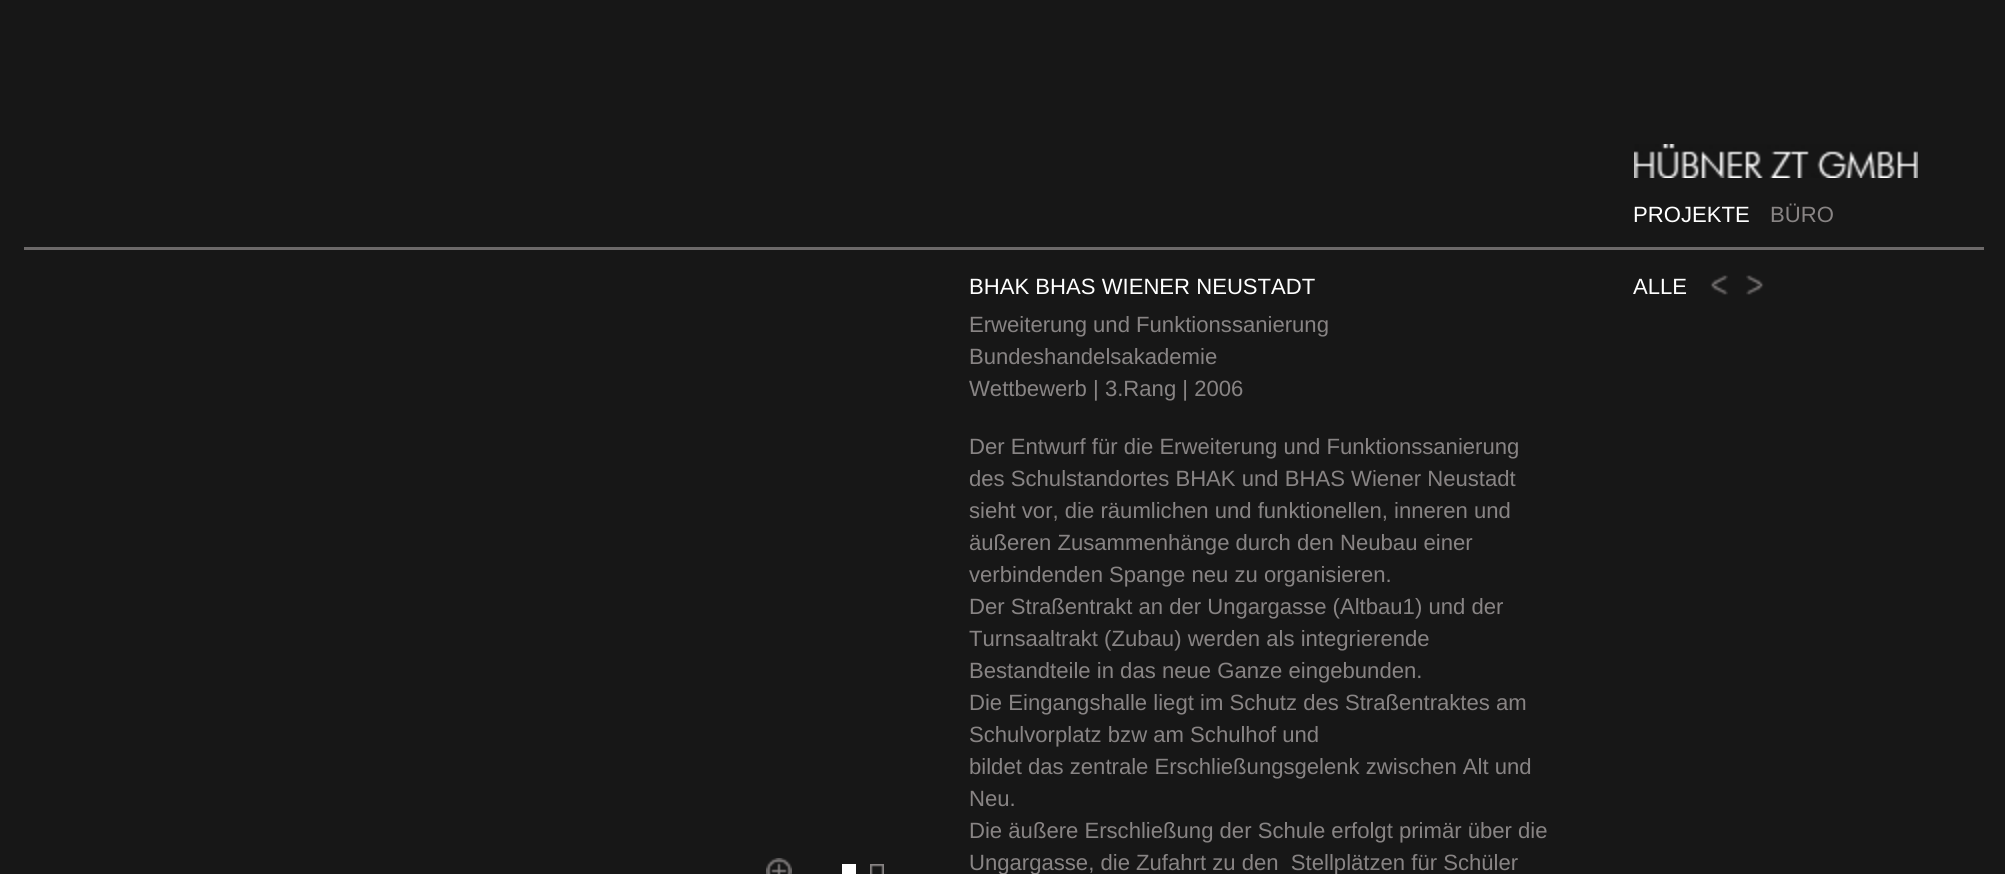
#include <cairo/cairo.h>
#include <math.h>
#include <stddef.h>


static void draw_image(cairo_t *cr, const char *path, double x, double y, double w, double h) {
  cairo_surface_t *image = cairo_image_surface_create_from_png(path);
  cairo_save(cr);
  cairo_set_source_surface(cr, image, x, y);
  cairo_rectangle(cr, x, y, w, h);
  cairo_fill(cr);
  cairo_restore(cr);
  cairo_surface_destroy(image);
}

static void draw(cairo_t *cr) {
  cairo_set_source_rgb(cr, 23 / 255.0, 23 / 255.0, 23 / 255.0);
  cairo_paint(cr);
  cairo_set_source_rgb(cr, 108 / 255.0, 105 / 255.0, 105 / 255.0);
  cairo_rectangle(cr, 24, 247, 1960, 3);
  cairo_fill(cr);
  draw_image(cr, "images/1.png", 1634, 144, 284, 34);
  draw_image(cr, "images/2.png", 1710, 275, 18, 20);
  draw_image(cr, "images/3.png", 1746, 275, 18, 20);
  draw_image(cr, "images/4.png", 766, 858, 26, 16);
  cairo_set_source_rgb(cr, 1, 1, 1);
  cairo_rectangle(cr, 842, 864, 14, 10);
  cairo_fill(cr);
  draw_image(cr, "images/5.png", 870, 864, 14, 10);
  cairo_select_font_face(cr, "Liberation Sans", CAIRO_FONT_SLANT_NORMAL, CAIRO_FONT_WEIGHT_NORMAL);
  cairo_set_font_size(cr, 22.1);
  cairo_move_to(cr, 1633, 222);
  cairo_show_text(cr, "PROJEKTE");
  cairo_set_source_rgb(cr, 136 / 255.0, 132 / 255.0, 132 / 255.0);
  cairo_move_to(cr, 1770, 222);
  cairo_show_text(cr, "BÜRO");
  cairo_set_source_rgb(cr, 1, 1, 1);
  cairo_move_to(cr, 969, 294);
  cairo_show_text(cr, "BHAK BHAS WIENER NEUSTADT");
  cairo_set_source_rgb(cr, 136 / 255.0, 132 / 255.0, 132 / 255.0);
  cairo_move_to(cr, 969, 332);
  cairo_show_text(cr, "Erweiterung und Funktionssanierung");
  cairo_move_to(cr, 969, 364);
  cairo_show_text(cr, "Bundeshandelsakademie");
  cairo_move_to(cr, 969, 396);
  cairo_show_text(cr, "Wettbewerb | 3.Rang | 2006");
  cairo_move_to(cr, 969, 454);
  cairo_show_text(cr, "Der Entwurf für die Erweiterung und Funktionssanierung");
  cairo_move_to(cr, 969, 486);
  cairo_show_text(cr, "des Schulstandortes BHAK und BHAS Wiener Neustadt");
  cairo_move_to(cr, 969, 518);
  cairo_show_text(cr, "sieht vor, die räumlichen und funktionellen, inneren und");
  cairo_move_to(cr, 969, 550);
  cairo_show_text(cr, "äußeren Zusammenhänge durch den Neubau einer");
  cairo_move_to(cr, 969, 582);
  cairo_show_text(cr, "verbindenden Spange neu zu organisieren.");
  cairo_move_to(cr, 969, 614);
  cairo_show_text(cr, "Der Straßentrakt an der Ungargasse (Altbau1) und der");
  cairo_move_to(cr, 969, 646);
  cairo_show_text(cr, "Turnsaaltrakt (Zubau) werden als integrierende");
  cairo_move_to(cr, 969, 678);
  cairo_show_text(cr, "Bestandteile in das neue Ganze eingebunden.");
  cairo_move_to(cr, 969, 710);
  cairo_show_text(cr, "Die Eingangshalle liegt im Schutz des Straßentraktes am");
  cairo_move_to(cr, 969, 742);
  cairo_show_text(cr, "Schulvorplatz bzw am Schulhof und");
  cairo_move_to(cr, 969, 774);
  cairo_show_text(cr, "bildet das zentrale Erschließungsgelenk zwischen Alt und");
  cairo_move_to(cr, 969, 806);
  cairo_show_text(cr, "Neu.");
  cairo_move_to(cr, 969, 838);
  cairo_show_text(cr, "Die äußere Erschließung der Schule erfolgt primär über die");
  cairo_move_to(cr, 969, 870);
  cairo_show_text(cr, "Ungargasse, die Zufahrt zu den  Stellplätzen für Schüler");
  cairo_set_source_rgb(cr, 1, 1, 1);
  cairo_move_to(cr, 1633, 294);
  cairo_show_text(cr, "ALLE");
}

int main(void) {
  cairo_surface_t *surface = cairo_image_surface_create(CAIRO_FORMAT_RGB24, 2005, 874);
  cairo_t *cr = cairo_create(surface);
  cairo_font_options_t *options = cairo_font_options_create();
  cairo_font_options_set_hint_metrics(options, CAIRO_HINT_METRICS_OFF);
  cairo_font_options_set_hint_style(options, CAIRO_HINT_STYLE_NONE);
  cairo_set_font_options(cr, options);
  cairo_set_miter_limit(cr, 4);
  draw(cr);
  cairo_surface_write_to_png(surface, "out.png");
  cairo_font_options_destroy(options);
  cairo_destroy(cr);
  cairo_surface_destroy(surface);
  return 0;
}
